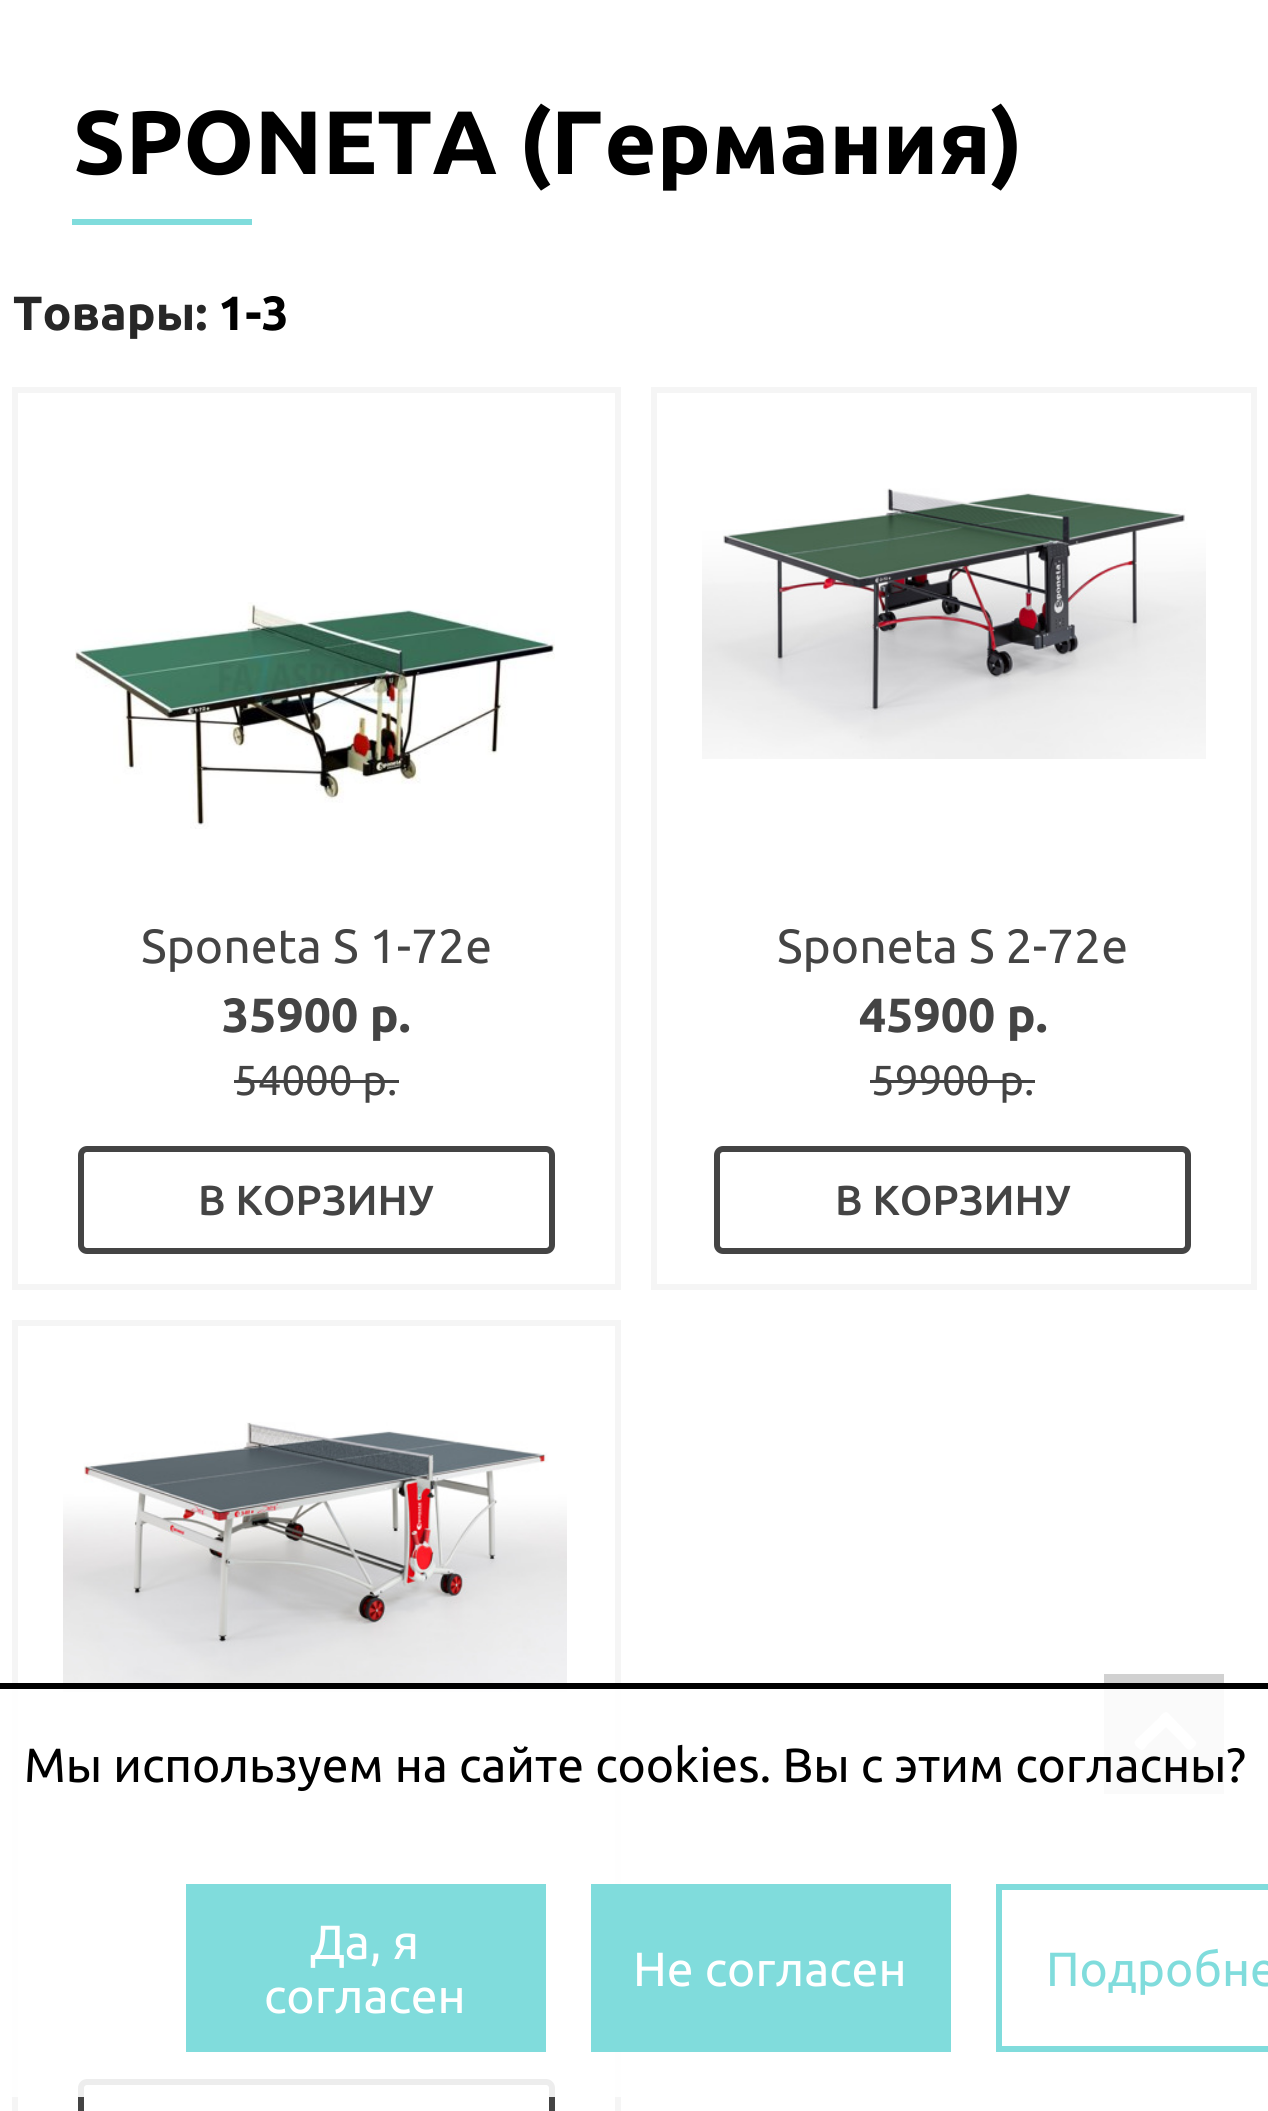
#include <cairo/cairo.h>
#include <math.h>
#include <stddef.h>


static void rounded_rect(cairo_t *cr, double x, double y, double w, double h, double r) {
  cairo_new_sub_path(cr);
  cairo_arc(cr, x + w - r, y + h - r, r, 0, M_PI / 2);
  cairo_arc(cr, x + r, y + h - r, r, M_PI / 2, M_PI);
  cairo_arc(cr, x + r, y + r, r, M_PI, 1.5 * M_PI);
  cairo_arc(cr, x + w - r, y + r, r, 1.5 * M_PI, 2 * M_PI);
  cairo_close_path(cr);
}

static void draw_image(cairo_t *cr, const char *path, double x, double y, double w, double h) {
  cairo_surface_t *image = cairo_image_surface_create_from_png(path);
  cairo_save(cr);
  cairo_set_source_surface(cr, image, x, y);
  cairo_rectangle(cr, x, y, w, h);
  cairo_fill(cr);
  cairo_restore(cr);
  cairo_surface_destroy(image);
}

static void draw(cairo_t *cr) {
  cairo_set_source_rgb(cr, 1, 1, 1);
  cairo_paint(cr);
  cairo_set_source_rgb(cr, 128 / 255.0, 220 / 255.0, 220 / 255.0);
  cairo_rectangle(cr, 72, 219, 180, 6);
  cairo_fill(cr);
  cairo_rectangle(cr, 15, 390, 603, 897);
  cairo_set_source_rgb(cr, 245 / 255.0, 245 / 255.0, 245 / 255.0);
  cairo_set_line_width(cr, 6);
  cairo_stroke(cr);
  draw_image(cr, "images/1.png", 75, 602, 480, 227);
  cairo_set_source_rgb(cr, 68 / 255.0, 68 / 255.0, 68 / 255.0);
  cairo_rectangle(cr, 234, 1080, 165, 3);
  cairo_fill(cr);
  rounded_rect(cr, 81, 1149, 471, 102, 6);
  cairo_stroke(cr);
  cairo_rectangle(cr, 654, 390, 600, 897);
  cairo_set_source_rgb(cr, 245 / 255.0, 245 / 255.0, 245 / 255.0);
  cairo_stroke(cr);
  draw_image(cr, "images/2.png", 702, 488, 504, 271);
  cairo_set_source_rgb(cr, 68 / 255.0, 68 / 255.0, 68 / 255.0);
  cairo_rectangle(cr, 870, 1080, 165, 3);
  cairo_fill(cr);
  rounded_rect(cr, 717, 1149, 471, 102, 6);
  cairo_stroke(cr);
  cairo_rectangle(cr, 15, 1323, 603, 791);
  cairo_set_source_rgb(cr, 245 / 255.0, 245 / 255.0, 245 / 255.0);
  cairo_stroke(cr);
  draw_image(cr, "images/3.png", 63, 1422, 504, 270);
  rounded_rect(cr, 81, 2082, 471, 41, 6);
  cairo_set_source_rgb(cr, 68 / 255.0, 68 / 255.0, 68 / 255.0);
  cairo_stroke(cr);
  cairo_set_source_rgb(cr, 209 / 255.0, 209 / 255.0, 209 / 255.0);
  cairo_rectangle(cr, 1104, 1674, 120, 120);
  cairo_fill(cr);
  cairo_set_source_rgb(cr, 1, 1, 1);
  cairo_new_path(cr);
  cairo_move_to(cr, 1168, 1713);
  cairo_line_to(cr, 1195, 1741);
  cairo_curve_to(cr, 1198, 1743, 1195, 1746, 1193, 1748);
  cairo_curve_to(cr, 1188, 1753, 1185, 1746, 1180, 1741);
  cairo_line_to(cr, 1166, 1727);
  cairo_line_to(cr, 1147, 1745);
  cairo_curve_to(cr, 1146, 1747, 1144, 1750, 1141, 1750);
  cairo_line_to(cr, 1137, 1747);
  cairo_curve_to(cr, 1132, 1742, 1136, 1740, 1140, 1736);
  cairo_line_to(cr, 1159, 1718);
  cairo_curve_to(cr, 1160, 1716, 1165, 1710, 1168, 1713);
  cairo_close_path(cr);
  cairo_fill(cr);
  cairo_set_source_rgba(cr, 1, 1, 1, 0.9);
  cairo_rectangle(cr, 12, 1689, 1212, 408);
  cairo_fill(cr);
  cairo_set_source_rgb(cr, 0, 0, 0);
  cairo_rectangle(cr, 0, 1683, 1268, 6);
  cairo_fill(cr);
  cairo_set_source_rgb(cr, 128 / 255.0, 220 / 255.0, 220 / 255.0);
  cairo_rectangle(cr, 186, 1884, 360, 168);
  cairo_fill(cr);
  cairo_rectangle(cr, 591, 1884, 360, 168);
  cairo_fill(cr);
  cairo_rectangle(cr, 999, 1887, 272, 162);
  cairo_stroke(cr);
  cairo_select_font_face(cr, "Ubuntu", CAIRO_FONT_SLANT_NORMAL, CAIRO_FONT_WEIGHT_BOLD);
  cairo_set_font_size(cr, 90);
  cairo_set_source_rgb(cr, 0, 0, 0);
  cairo_move_to(cr, 73, 174);
  cairo_show_text(cr, "SPONETA (Германия)");
  cairo_set_font_size(cr, 48);
  cairo_set_source_rgb(cr, 39 / 255.0, 39 / 255.0, 39 / 255.0);
  cairo_move_to(cr, 13, 330);
  cairo_show_text(cr, "Товары:");
  cairo_set_source_rgb(cr, 0, 0, 0);
  cairo_move_to(cr, 218, 330);
  cairo_show_text(cr, "1-3");
  cairo_select_font_face(cr, "Ubuntu", CAIRO_FONT_SLANT_NORMAL, CAIRO_FONT_WEIGHT_NORMAL);
  cairo_set_source_rgb(cr, 68 / 255.0, 68 / 255.0, 68 / 255.0);
  cairo_move_to(cr, 141, 963);
  cairo_show_text(cr, "Sponeta S 1-72e");
  cairo_select_font_face(cr, "Ubuntu", CAIRO_FONT_SLANT_NORMAL, CAIRO_FONT_WEIGHT_BOLD);
  cairo_move_to(cr, 222, 1032);
  cairo_show_text(cr, "35900 р.");
  cairo_select_font_face(cr, "Ubuntu", CAIRO_FONT_SLANT_NORMAL, CAIRO_FONT_WEIGHT_NORMAL);
  cairo_set_font_size(cr, 42);
  cairo_move_to(cr, 234, 1095);
  cairo_show_text(cr, "54000 р.");
  cairo_select_font_face(cr, "Ubuntu Medium", CAIRO_FONT_SLANT_NORMAL, CAIRO_FONT_WEIGHT_NORMAL);
  cairo_move_to(cr, 198, 1215);
  cairo_show_text(cr, "В КОРЗИНУ");
  cairo_select_font_face(cr, "Ubuntu", CAIRO_FONT_SLANT_NORMAL, CAIRO_FONT_WEIGHT_NORMAL);
  cairo_set_font_size(cr, 48);
  cairo_move_to(cr, 777, 963);
  cairo_show_text(cr, "Sponeta S 2-72e");
  cairo_select_font_face(cr, "Ubuntu", CAIRO_FONT_SLANT_NORMAL, CAIRO_FONT_WEIGHT_BOLD);
  cairo_move_to(cr, 859, 1032);
  cairo_show_text(cr, "45900 р.");
  cairo_select_font_face(cr, "Ubuntu", CAIRO_FONT_SLANT_NORMAL, CAIRO_FONT_WEIGHT_NORMAL);
  cairo_set_font_size(cr, 42);
  cairo_move_to(cr, 871, 1095);
  cairo_show_text(cr, "59900 р.");
  cairo_select_font_face(cr, "Ubuntu Medium", CAIRO_FONT_SLANT_NORMAL, CAIRO_FONT_WEIGHT_NORMAL);
  cairo_move_to(cr, 835, 1215);
  cairo_show_text(cr, "В КОРЗИНУ");
  cairo_select_font_face(cr, "Ubuntu", CAIRO_FONT_SLANT_NORMAL, CAIRO_FONT_WEIGHT_NORMAL);
  cairo_set_font_size(cr, 48);
  cairo_set_source_rgb(cr, 0, 0, 0);
  cairo_move_to(cr, 24, 1782);
  cairo_show_text(cr, "Мы используем на сайте cookies. Вы с этим согласны?");
  cairo_set_source_rgb(cr, 1, 1, 1);
  cairo_move_to(cr, 310, 1959);
  cairo_show_text(cr, "Да, я");
  cairo_move_to(cr, 264, 2013);
  cairo_show_text(cr, "согласен");
  cairo_move_to(cr, 633, 1986);
  cairo_show_text(cr, "Не согласен");
  cairo_set_source_rgb(cr, 128 / 255.0, 220 / 255.0, 220 / 255.0);
  cairo_move_to(cr, 1046, 1986);
  cairo_show_text(cr, "Подробне");
}

int main(void) {
  cairo_surface_t *surface = cairo_image_surface_create(CAIRO_FORMAT_RGB24, 1268, 2111);
  cairo_t *cr = cairo_create(surface);
  cairo_font_options_t *options = cairo_font_options_create();
  cairo_font_options_set_hint_metrics(options, CAIRO_HINT_METRICS_OFF);
  cairo_font_options_set_hint_style(options, CAIRO_HINT_STYLE_NONE);
  cairo_set_font_options(cr, options);
  cairo_set_miter_limit(cr, 4);
  draw(cr);
  cairo_surface_write_to_png(surface, "out.png");
  cairo_font_options_destroy(options);
  cairo_destroy(cr);
  cairo_surface_destroy(surface);
  return 0;
}
